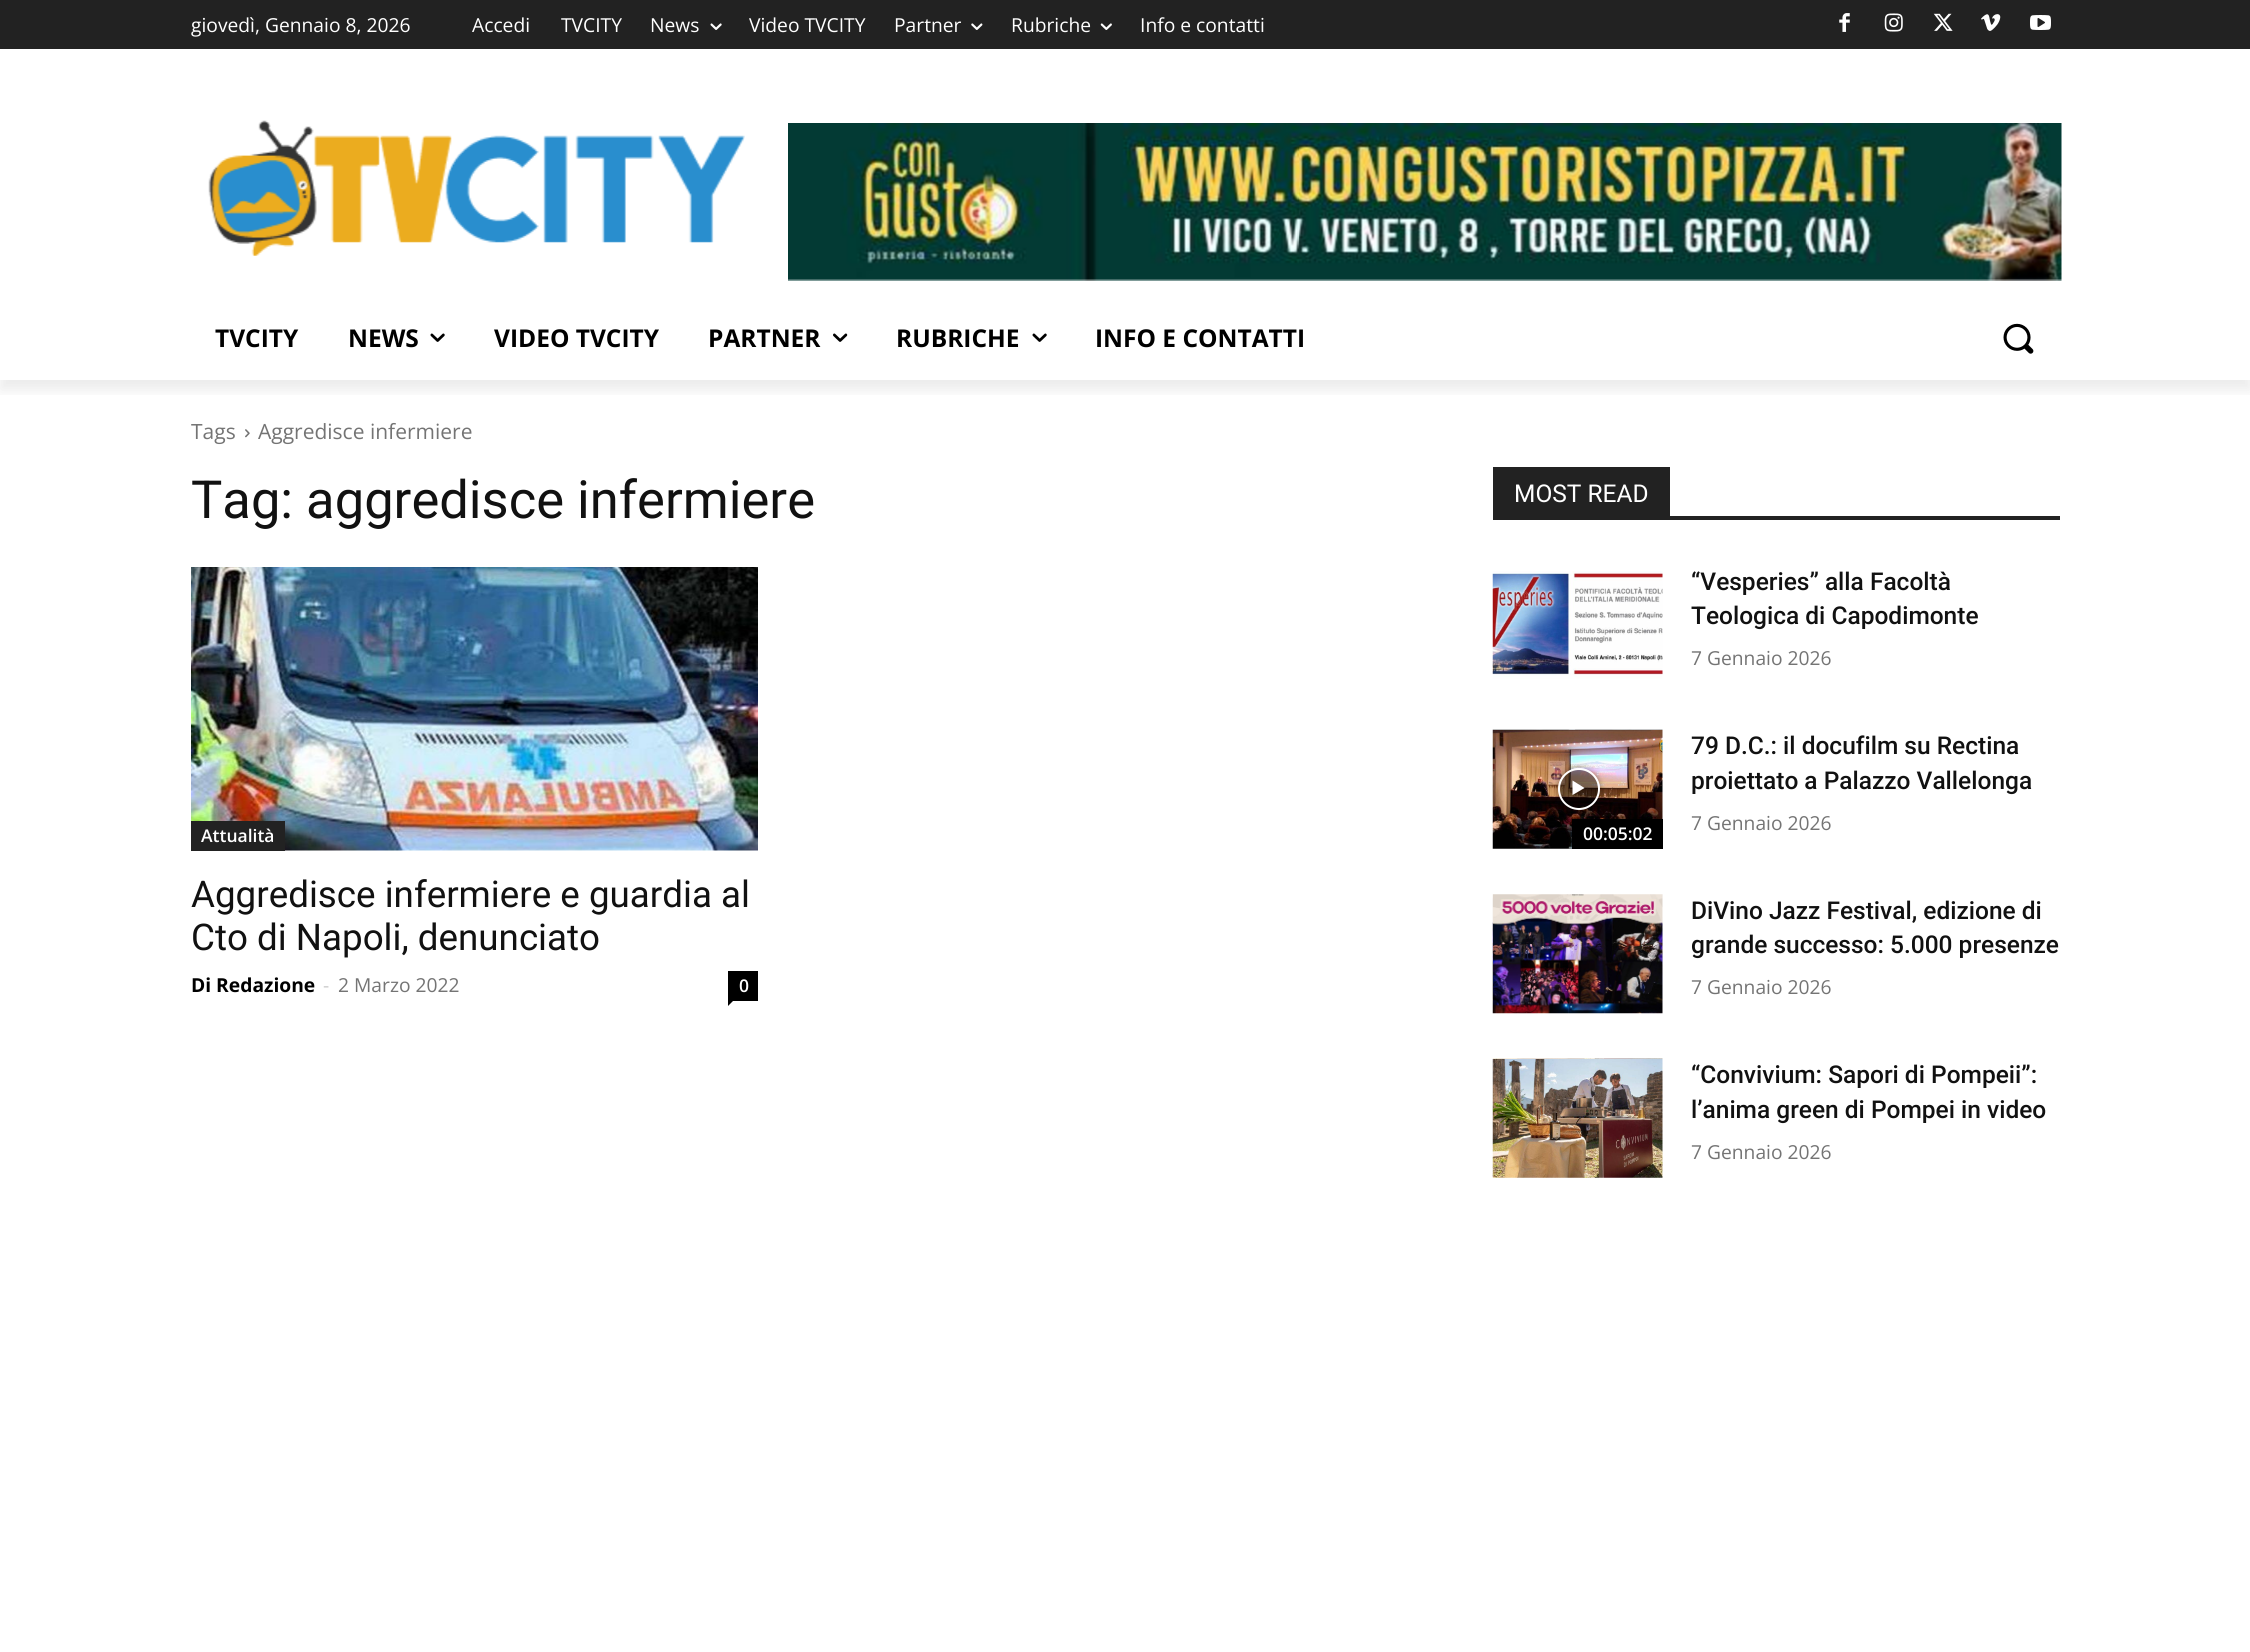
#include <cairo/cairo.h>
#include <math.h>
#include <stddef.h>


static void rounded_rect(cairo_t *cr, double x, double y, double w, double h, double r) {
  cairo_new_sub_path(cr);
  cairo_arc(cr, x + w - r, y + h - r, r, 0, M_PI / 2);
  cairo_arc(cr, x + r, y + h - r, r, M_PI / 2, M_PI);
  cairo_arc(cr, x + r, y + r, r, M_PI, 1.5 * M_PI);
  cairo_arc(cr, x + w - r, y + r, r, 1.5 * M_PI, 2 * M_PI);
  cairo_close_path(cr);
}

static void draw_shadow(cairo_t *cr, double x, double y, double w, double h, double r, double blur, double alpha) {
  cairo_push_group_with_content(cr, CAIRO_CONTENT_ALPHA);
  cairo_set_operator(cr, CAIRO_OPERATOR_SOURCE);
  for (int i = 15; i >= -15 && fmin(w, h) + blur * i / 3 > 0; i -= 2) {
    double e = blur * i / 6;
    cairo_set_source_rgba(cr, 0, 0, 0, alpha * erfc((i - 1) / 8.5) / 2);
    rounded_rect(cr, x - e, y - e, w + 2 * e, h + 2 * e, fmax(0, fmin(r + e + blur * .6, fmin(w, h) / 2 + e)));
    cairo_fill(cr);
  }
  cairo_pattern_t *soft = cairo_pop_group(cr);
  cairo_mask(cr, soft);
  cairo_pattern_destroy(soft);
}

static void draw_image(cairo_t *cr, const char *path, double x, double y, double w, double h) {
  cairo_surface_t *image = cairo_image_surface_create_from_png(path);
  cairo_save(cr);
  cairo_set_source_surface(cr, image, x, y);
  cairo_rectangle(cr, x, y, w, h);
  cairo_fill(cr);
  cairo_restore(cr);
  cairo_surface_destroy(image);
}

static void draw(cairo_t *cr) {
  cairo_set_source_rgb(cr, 1, 1, 1);
  cairo_paint(cr);
  cairo_set_source_rgb(cr, 34 / 255.0, 34 / 255.0, 34 / 255.0);
  cairo_rectangle(cr, 0, 0, 2250, 49);
  cairo_fill(cr);
  draw_image(cr, "images/4.png", 1839, 13, 11, 19);
  draw_image(cr, "images/5.png", 1884, 13, 19, 19);
  draw_image(cr, "images/6.png", 1933, 13, 20, 18);
  draw_image(cr, "images/7.png", 1981, 14, 20, 17);
  draw_image(cr, "images/8.png", 2030, 15, 21, 15);
  draw_image(cr, "images/9.png", 208, 120, 537, 136);
  draw_image(cr, "images/10.png", 788, 123, 1274, 158);
  cairo_save(cr);
  cairo_rectangle(cr, 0, 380, 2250, 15);
  cairo_clip(cr);
  cairo_set_source_rgb(cr, 0, 0, 0);
  draw_shadow(cr, 0, 11, 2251, 379, 0, 7, 0.08);
  cairo_restore(cr);
  draw_image(cr, "images/1.png", 710, 23, 12, 7);
  draw_image(cr, "images/2.png", 971, 23, 12, 7);
  draw_image(cr, "images/3.png", 1100, 23, 12, 7);
  draw_image(cr, "images/11.png", 430, 333, 15, 9);
  draw_image(cr, "images/12.png", 833, 333, 15, 9);
  draw_image(cr, "images/11.png", 1032, 333, 15, 9);
  draw_image(cr, "images/13.png", 2003, 323, 31, 31);
  draw_image(cr, "images/14.png", 245, 429, 5, 9);
  draw_image(cr, "images/15.png", 191, 567, 567, 284);
  cairo_rectangle(cr, 191, 821, 94, 30);
  cairo_fill(cr);
  cairo_set_source_rgb(cr, 0, 0, 0);
  cairo_rectangle(cr, 728, 971, 30, 30);
  cairo_fill(cr);
  cairo_new_path(cr);
  cairo_move_to(cr, 728, 1001);
  cairo_line_to(cr, 733, 1001);
  cairo_line_to(cr, 728, 1006);
  cairo_close_path(cr);
  cairo_fill(cr);
  cairo_set_source_rgb(cr, 34 / 255.0, 34 / 255.0, 34 / 255.0);
  cairo_rectangle(cr, 1493, 516, 567, 4);
  cairo_fill(cr);
  cairo_rectangle(cr, 1493, 467, 177, 49);
  cairo_fill(cr);
  draw_image(cr, "images/16.png", 1492, 571, 171, 108);
  draw_image(cr, "images/17.png", 1492, 729, 171, 120);
  cairo_save(cr);
  cairo_set_fill_rule(cr, CAIRO_FILL_RULE_EVEN_ODD);
  cairo_new_path(cr);
  cairo_move_to(cr, 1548, 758);
  cairo_line_to(cr, 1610, 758);
  cairo_line_to(cr, 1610, 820);
  cairo_line_to(cr, 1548, 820);
  cairo_close_path(cr);
  cairo_move_to(cr, 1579, 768);
  cairo_curve_to(cr, 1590.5, 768, 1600, 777.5, 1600, 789);
  cairo_curve_to(cr, 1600, 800.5, 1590.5, 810, 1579, 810);
  cairo_curve_to(cr, 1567.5, 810, 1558, 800.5, 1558, 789);
  cairo_curve_to(cr, 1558, 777.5, 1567.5, 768, 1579, 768);
  cairo_close_path(cr);
  cairo_clip(cr);
  cairo_set_source_rgb(cr, 0, 0, 0);
  draw_shadow(cr, 1558, 768, 42, 42, 21, 3, 0.4);
  cairo_restore(cr);
  cairo_set_source_rgba(cr, 0, 0, 0, 0.48);
  cairo_arc(cr, 1579, 789, 20, 0, 2 * M_PI);
  cairo_fill_preserve(cr);
  cairo_set_source_rgb(cr, 1, 1, 1);
  cairo_stroke(cr);
  cairo_new_path(cr);
  cairo_move_to(cr, 1572.5, 780.5);
  cairo_line_to(cr, 1572.5, 795);
  cairo_line_to(cr, 1584.5, 788);
  cairo_close_path(cr);
  cairo_fill(cr);
  cairo_set_source_rgb(cr, 0, 0, 0);
  cairo_rectangle(cr, 1572, 819, 91, 30);
  cairo_fill(cr);
  draw_image(cr, "images/18.png", 1492, 894, 171, 120);
  draw_image(cr, "images/19.png", 1492, 1058, 171, 120);
  cairo_select_font_face(cr, "Open Sans", CAIRO_FONT_SLANT_NORMAL, CAIRO_FONT_WEIGHT_NORMAL);
  cairo_set_font_size(cr, 19.25);
  cairo_set_source_rgb(cr, 1, 1, 1);
  cairo_move_to(cr, 191, 32);
  cairo_show_text(cr, "giovedì, Gennaio 8, 2026");
  cairo_move_to(cr, 472, 32);
  cairo_show_text(cr, "Accedi");
  cairo_move_to(cr, 561, 32);
  cairo_show_text(cr, "TVCITY");
  cairo_move_to(cr, 650, 32);
  cairo_show_text(cr, "News");
  cairo_move_to(cr, 749, 32);
  cairo_show_text(cr, "Video TVCITY");
  cairo_move_to(cr, 894, 32);
  cairo_show_text(cr, "Partner");
  cairo_move_to(cr, 1011, 32);
  cairo_show_text(cr, "Rubriche");
  cairo_move_to(cr, 1140, 32);
  cairo_show_text(cr, "Info e contatti");
  cairo_select_font_face(cr, "Open Sans", CAIRO_FONT_SLANT_NORMAL, CAIRO_FONT_WEIGHT_BOLD);
  cairo_set_font_size(cr, 24.5);
  cairo_set_source_rgb(cr, 0, 0, 0);
  cairo_move_to(cr, 215, 347);
  cairo_show_text(cr, "TVCITY");
  cairo_move_to(cr, 348, 347);
  cairo_show_text(cr, "NEWS");
  cairo_move_to(cr, 494, 347);
  cairo_show_text(cr, "VIDEO TVCITY");
  cairo_move_to(cr, 708, 347);
  cairo_show_text(cr, "PARTNER");
  cairo_move_to(cr, 896, 347);
  cairo_show_text(cr, "RUBRICHE");
  cairo_move_to(cr, 1095, 347);
  cairo_show_text(cr, "INFO E CONTATTI");
  cairo_select_font_face(cr, "Open Sans", CAIRO_FONT_SLANT_NORMAL, CAIRO_FONT_WEIGHT_NORMAL);
  cairo_set_font_size(cr, 21);
  cairo_set_source_rgb(cr, 116 / 255.0, 116 / 255.0, 116 / 255.0);
  cairo_move_to(cr, 191, 439);
  cairo_show_text(cr, "Tags");
  cairo_move_to(cr, 258, 439);
  cairo_show_text(cr, "Aggredisce infermiere");
  cairo_select_font_face(cr, "Roboto", CAIRO_FONT_SLANT_NORMAL, CAIRO_FONT_WEIGHT_NORMAL);
  cairo_set_font_size(cr, 52.5);
  cairo_set_source_rgb(cr, 17 / 255.0, 17 / 255.0, 17 / 255.0);
  cairo_move_to(cr, 191, 518);
  cairo_show_text(cr, "Tag: aggredisce infermiere");
  cairo_select_font_face(cr, "Open Sans SemiBold", CAIRO_FONT_SLANT_NORMAL, CAIRO_FONT_WEIGHT_NORMAL);
  cairo_set_font_size(cr, 17.5);
  cairo_set_source_rgb(cr, 1, 1, 1);
  cairo_move_to(cr, 201, 842);
  cairo_show_text(cr, "Attualità");
  cairo_select_font_face(cr, "Roboto", CAIRO_FONT_SLANT_NORMAL, CAIRO_FONT_WEIGHT_NORMAL);
  cairo_set_font_size(cr, 36.75);
  cairo_set_source_rgb(cr, 17 / 255.0, 17 / 255.0, 17 / 255.0);
  cairo_move_to(cr, 191, 907);
  cairo_show_text(cr, "Aggredisce infermiere e guardia al");
  cairo_move_to(cr, 191, 950);
  cairo_show_text(cr, "Cto di Napoli, denunciato");
  cairo_select_font_face(cr, "Open Sans", CAIRO_FONT_SLANT_NORMAL, CAIRO_FONT_WEIGHT_BOLD);
  cairo_set_font_size(cr, 19.25);
  cairo_set_source_rgb(cr, 0, 0, 0);
  cairo_move_to(cr, 191, 992);
  cairo_show_text(cr, "Di Redazione");
  cairo_select_font_face(cr, "Open Sans", CAIRO_FONT_SLANT_NORMAL, CAIRO_FONT_WEIGHT_NORMAL);
  cairo_set_source_rgb(cr, 204 / 255.0, 204 / 255.0, 204 / 255.0);
  cairo_move_to(cr, 323, 992);
  cairo_show_text(cr, "-");
  cairo_set_source_rgb(cr, 116 / 255.0, 116 / 255.0, 116 / 255.0);
  cairo_move_to(cr, 338, 992);
  cairo_show_text(cr, "2 Marzo 2022");
  cairo_select_font_face(cr, "Open Sans SemiBold", CAIRO_FONT_SLANT_NORMAL, CAIRO_FONT_WEIGHT_NORMAL);
  cairo_set_font_size(cr, 17.5);
  cairo_set_source_rgb(cr, 1, 1, 1);
  cairo_move_to(cr, 739, 992);
  cairo_show_text(cr, "0");
  cairo_select_font_face(cr, "Roboto", CAIRO_FONT_SLANT_NORMAL, CAIRO_FONT_WEIGHT_NORMAL);
  cairo_set_font_size(cr, 24.5);
  cairo_move_to(cr, 1514, 502);
  cairo_show_text(cr, "MOST READ");
  cairo_select_font_face(cr, "Roboto Medium", CAIRO_FONT_SLANT_NORMAL, CAIRO_FONT_WEIGHT_NORMAL);
  cairo_set_source_rgb(cr, 17 / 255.0, 17 / 255.0, 17 / 255.0);
  cairo_move_to(cr, 1691, 590);
  cairo_show_text(cr, "“Vesperies” alla Facoltà");
  cairo_move_to(cr, 1691, 624);
  cairo_show_text(cr, "Teologica di Capodimonte");
  cairo_select_font_face(cr, "Open Sans", CAIRO_FONT_SLANT_NORMAL, CAIRO_FONT_WEIGHT_NORMAL);
  cairo_set_font_size(cr, 19.25);
  cairo_set_source_rgb(cr, 116 / 255.0, 116 / 255.0, 116 / 255.0);
  cairo_move_to(cr, 1691, 665);
  cairo_show_text(cr, "7 Gennaio 2026");
  cairo_select_font_face(cr, "Roboto Medium", CAIRO_FONT_SLANT_NORMAL, CAIRO_FONT_WEIGHT_NORMAL);
  cairo_set_font_size(cr, 24.5);
  cairo_set_source_rgb(cr, 17 / 255.0, 17 / 255.0, 17 / 255.0);
  cairo_move_to(cr, 1691, 754);
  cairo_show_text(cr, "79 D.C.: il docufilm su Rectina");
  cairo_move_to(cr, 1691, 789);
  cairo_show_text(cr, "proiettato a Palazzo Vallelonga");
  cairo_select_font_face(cr, "Open Sans", CAIRO_FONT_SLANT_NORMAL, CAIRO_FONT_WEIGHT_NORMAL);
  cairo_set_font_size(cr, 19.25);
  cairo_set_source_rgb(cr, 116 / 255.0, 116 / 255.0, 116 / 255.0);
  cairo_move_to(cr, 1691, 830);
  cairo_show_text(cr, "7 Gennaio 2026");
  cairo_select_font_face(cr, "Open Sans SemiBold", CAIRO_FONT_SLANT_NORMAL, CAIRO_FONT_WEIGHT_NORMAL);
  cairo_set_font_size(cr, 17.5);
  cairo_set_source_rgb(cr, 1, 1, 1);
  cairo_move_to(cr, 1583, 840);
  cairo_show_text(cr, "00:05:02");
  cairo_select_font_face(cr, "Roboto Medium", CAIRO_FONT_SLANT_NORMAL, CAIRO_FONT_WEIGHT_NORMAL);
  cairo_set_font_size(cr, 24.5);
  cairo_set_source_rgb(cr, 17 / 255.0, 17 / 255.0, 17 / 255.0);
  cairo_move_to(cr, 1691, 919);
  cairo_show_text(cr, "DiVino Jazz Festival, edizione di");
  cairo_move_to(cr, 1691, 953);
  cairo_show_text(cr, "grande successo: 5.000 presenze");
  cairo_select_font_face(cr, "Open Sans", CAIRO_FONT_SLANT_NORMAL, CAIRO_FONT_WEIGHT_NORMAL);
  cairo_set_font_size(cr, 19.25);
  cairo_set_source_rgb(cr, 116 / 255.0, 116 / 255.0, 116 / 255.0);
  cairo_move_to(cr, 1691, 994);
  cairo_show_text(cr, "7 Gennaio 2026");
  cairo_select_font_face(cr, "Roboto Medium", CAIRO_FONT_SLANT_NORMAL, CAIRO_FONT_WEIGHT_NORMAL);
  cairo_set_font_size(cr, 24.5);
  cairo_set_source_rgb(cr, 17 / 255.0, 17 / 255.0, 17 / 255.0);
  cairo_move_to(cr, 1691, 1083);
  cairo_show_text(cr, "“Convivium: Sapori di Pompeii”:");
  cairo_move_to(cr, 1691, 1118);
  cairo_show_text(cr, "l’anima green di Pompei in video");
  cairo_select_font_face(cr, "Open Sans", CAIRO_FONT_SLANT_NORMAL, CAIRO_FONT_WEIGHT_NORMAL);
  cairo_set_font_size(cr, 19.25);
  cairo_set_source_rgb(cr, 116 / 255.0, 116 / 255.0, 116 / 255.0);
  cairo_move_to(cr, 1691, 1159);
  cairo_show_text(cr, "7 Gennaio 2026");
}

int main(void) {
  cairo_surface_t *surface = cairo_image_surface_create(CAIRO_FORMAT_RGB24, 2250, 1652);
  cairo_t *cr = cairo_create(surface);
  cairo_font_options_t *options = cairo_font_options_create();
  cairo_font_options_set_hint_metrics(options, CAIRO_HINT_METRICS_OFF);
  cairo_font_options_set_hint_style(options, CAIRO_HINT_STYLE_NONE);
  cairo_set_font_options(cr, options);
  cairo_set_miter_limit(cr, 4);
  draw(cr);
  cairo_surface_write_to_png(surface, "out.png");
  cairo_font_options_destroy(options);
  cairo_destroy(cr);
  cairo_surface_destroy(surface);
  return 0;
}
